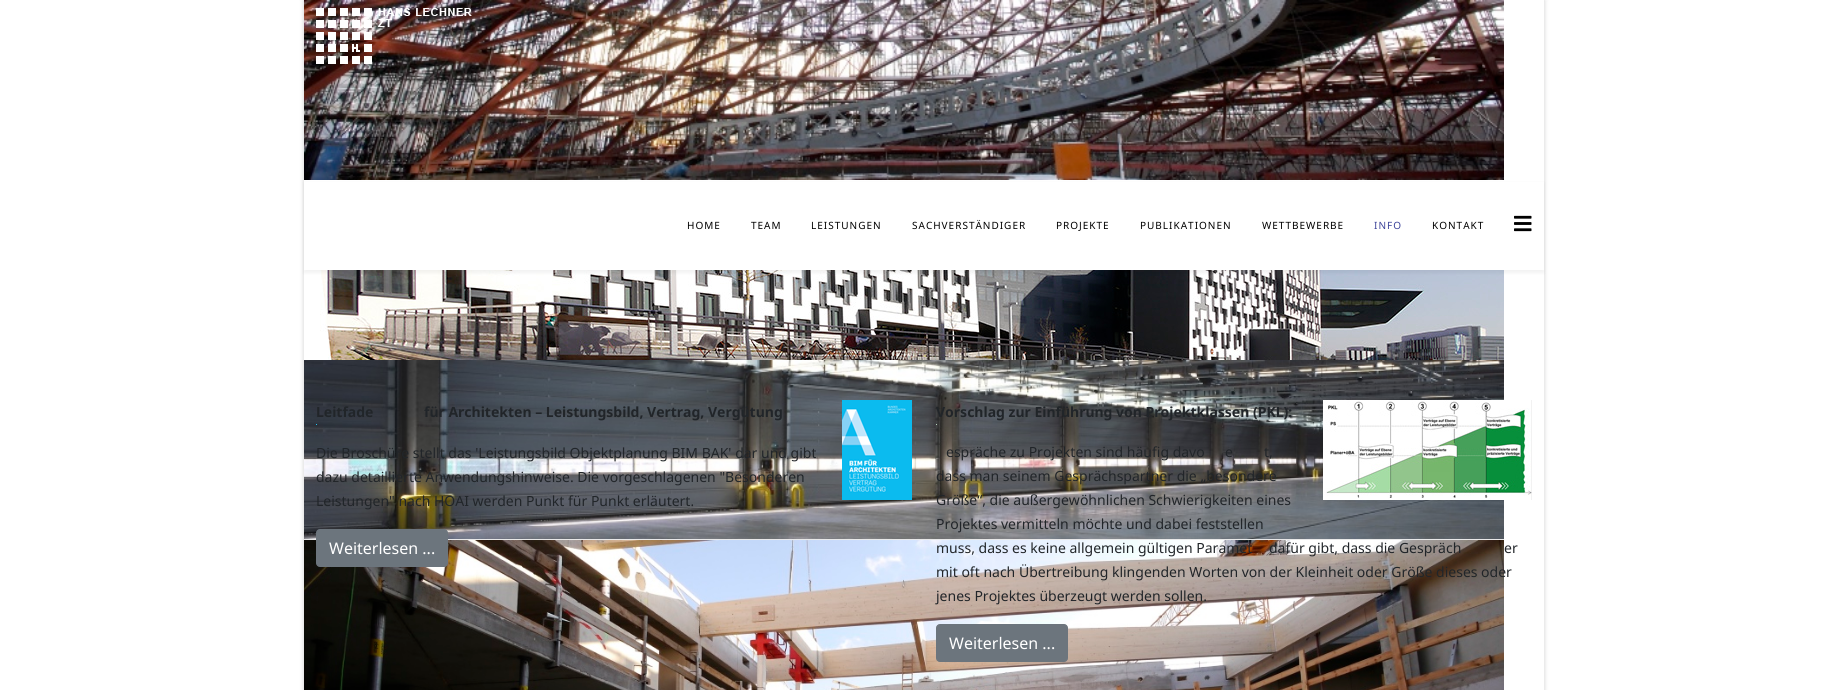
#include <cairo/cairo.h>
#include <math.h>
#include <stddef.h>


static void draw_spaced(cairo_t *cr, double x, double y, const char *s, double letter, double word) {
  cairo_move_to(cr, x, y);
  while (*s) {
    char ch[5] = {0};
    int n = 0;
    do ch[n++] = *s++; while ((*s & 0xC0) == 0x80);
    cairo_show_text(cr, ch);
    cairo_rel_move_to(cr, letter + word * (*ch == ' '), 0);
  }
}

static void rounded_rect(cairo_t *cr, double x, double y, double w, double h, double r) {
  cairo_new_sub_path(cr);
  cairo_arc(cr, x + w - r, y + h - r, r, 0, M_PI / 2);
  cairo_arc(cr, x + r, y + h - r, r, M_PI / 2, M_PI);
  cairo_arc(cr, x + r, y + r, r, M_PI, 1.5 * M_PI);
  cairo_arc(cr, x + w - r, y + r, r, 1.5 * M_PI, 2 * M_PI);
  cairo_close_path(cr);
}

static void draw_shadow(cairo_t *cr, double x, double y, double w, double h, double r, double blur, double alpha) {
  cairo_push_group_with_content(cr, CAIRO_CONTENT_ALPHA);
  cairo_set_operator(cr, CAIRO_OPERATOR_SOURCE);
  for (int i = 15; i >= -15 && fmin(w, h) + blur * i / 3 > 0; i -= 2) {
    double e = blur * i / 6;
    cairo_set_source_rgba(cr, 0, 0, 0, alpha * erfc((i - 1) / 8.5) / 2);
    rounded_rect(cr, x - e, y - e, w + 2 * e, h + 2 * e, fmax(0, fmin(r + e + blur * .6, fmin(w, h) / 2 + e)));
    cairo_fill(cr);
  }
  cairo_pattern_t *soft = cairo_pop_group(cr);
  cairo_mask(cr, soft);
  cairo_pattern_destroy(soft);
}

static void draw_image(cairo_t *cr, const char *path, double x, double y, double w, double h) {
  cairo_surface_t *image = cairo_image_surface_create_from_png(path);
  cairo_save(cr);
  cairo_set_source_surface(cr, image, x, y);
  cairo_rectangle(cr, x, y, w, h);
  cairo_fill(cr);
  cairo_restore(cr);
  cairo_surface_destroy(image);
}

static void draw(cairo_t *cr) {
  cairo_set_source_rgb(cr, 1, 1, 1);
  cairo_paint(cr);
  cairo_save(cr);
  cairo_set_fill_rule(cr, CAIRO_FILL_RULE_EVEN_ODD);
  cairo_new_path(cr);
  cairo_move_to(cr, 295, 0);
  cairo_line_to(cr, 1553, 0);
  cairo_line_to(cr, 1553, 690);
  cairo_line_to(cr, 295, 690);
  cairo_close_path(cr);
  cairo_move_to(cr, 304, 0);
  cairo_line_to(cr, 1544, 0);
  cairo_line_to(cr, 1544, 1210);
  cairo_line_to(cr, 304, 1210);
  cairo_close_path(cr);
  cairo_clip(cr);
  cairo_set_source_rgb(cr, 0, 0, 0);
  draw_shadow(cr, 304, 0, 1240, 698, 0, 2.5, 0.2);
  cairo_restore(cr);
  draw_image(cr, "images/1.png", 304, 0, 1200, 180);
  draw_image(cr, "images/2.png", 304, 270, 1200, 90);
  cairo_set_source_rgb(cr, 232 / 255.0, 232 / 255.0, 232 / 255.0);
  cairo_rectangle(cr, 304, 539, 1200, 1);
  cairo_fill(cr);
  draw_image(cr, "images/3.png", 304, 360, 1200, 179);
  draw_image(cr, "images/4.png", 304, 540, 1200, 150);
  draw_image(cr, "images/5.png", 316, 8, 156, 56);
  cairo_set_source_rgb(cr, 0, 0, 0);
  draw_shadow(cr, 304, 183, 1240, 90, 0, 1.5, 0.05);
  cairo_set_source_rgb(cr, 1, 1, 1);
  cairo_rectangle(cr, 304, 182, 1240, 88);
  cairo_fill(cr);
  draw_image(cr, "images/6.png", 1514, 215, 18, 17);
  cairo_set_source_rgb(cr, 37 / 255.0, 195 / 255.0, 240 / 255.0);
  cairo_rectangle(cr, 316, 424, 1, 1);
  cairo_fill(cr);
  draw_image(cr, "images/7.png", 842, 400, 70, 100);
  cairo_set_source_rgb(cr, 108 / 255.0, 117 / 255.0, 125 / 255.0);
  rounded_rect(cr, 316.5, 529.5, 131, 37, 3.5);
  cairo_fill_preserve(cr);
  cairo_set_line_width(cr, 1);
  cairo_stroke(cr);
  cairo_set_source_rgb(cr, 182 / 255.0, 212 / 255.0, 187 / 255.0);
  cairo_rectangle(cr, 936, 424, 1, 1);
  cairo_fill(cr);
  draw_image(cr, "images/8.png", 1323, 400, 209, 100);
  cairo_set_source_rgb(cr, 108 / 255.0, 117 / 255.0, 125 / 255.0);
  rounded_rect(cr, 936.5, 624.5, 131, 37, 3.5);
  cairo_fill_preserve(cr);
  cairo_stroke(cr);
  cairo_select_font_face(cr, "Noto Sans", CAIRO_FONT_SLANT_NORMAL, CAIRO_FONT_WEIGHT_NORMAL);
  cairo_set_font_size(cr, 10);
  cairo_set_source_rgb(cr, 0, 0, 0);
  draw_spaced(cr, 687, 229, "HOME", 1, 0);
  draw_spaced(cr, 751, 229, "TEAM", 1, 0);
  draw_spaced(cr, 811, 229, "LEISTUNGEN", 1, 0);
  draw_spaced(cr, 912, 229, "SACHVERSTÄNDIGER", 1, 0);
  draw_spaced(cr, 1056, 229, "PROJEKTE", 1, 0);
  draw_spaced(cr, 1140, 229, "PUBLIKATIONEN", 1, 0);
  draw_spaced(cr, 1262, 229, "WETTBEWERBE", 1, 0);
  cairo_set_source_rgb(cr, 61 / 255.0, 68 / 255.0, 154 / 255.0);
  draw_spaced(cr, 1374, 229, "INFO", 1, 0);
  cairo_set_source_rgb(cr, 0, 0, 0);
  draw_spaced(cr, 1432, 229, "KONTAKT", 1, 0);
  cairo_select_font_face(cr, "Noto Sans", CAIRO_FONT_SLANT_NORMAL, CAIRO_FONT_WEIGHT_BOLD);
  cairo_set_font_size(cr, 14);
  cairo_set_source_rgb(cr, 33 / 255.0, 37 / 255.0, 41 / 255.0);
  cairo_move_to(cr, 316, 417);
  cairo_show_text(cr, "Leitfade");
  cairo_move_to(cr, 424, 417);
  cairo_show_text(cr, "für Architekten – Leistungsbild, Vertrag, Vergütung");
  cairo_select_font_face(cr, "Noto Sans", CAIRO_FONT_SLANT_NORMAL, CAIRO_FONT_WEIGHT_NORMAL);
  cairo_move_to(cr, 316, 458);
  cairo_show_text(cr, "Die Broschüre stellt das 'Leistungsbild Objektplanung BIM BAK' dar und gibt");
  cairo_move_to(cr, 316, 482);
  cairo_show_text(cr, "dazu detaillierte Anwendungshinweise. Die vorgeschlagenen \"Besonderen");
  cairo_move_to(cr, 316, 506);
  cairo_show_text(cr, "Leistungen\" nach HOAI werden Punkt für Punkt erläutert.");
  cairo_set_font_size(cr, 16);
  cairo_set_source_rgb(cr, 1, 1, 1);
  cairo_move_to(cr, 329, 554);
  cairo_show_text(cr, "Weiterlesen ...");
  cairo_select_font_face(cr, "Noto Sans", CAIRO_FONT_SLANT_NORMAL, CAIRO_FONT_WEIGHT_BOLD);
  cairo_set_font_size(cr, 14);
  cairo_set_source_rgb(cr, 33 / 255.0, 37 / 255.0, 41 / 255.0);
  cairo_move_to(cr, 936, 417);
  cairo_show_text(cr, "Vorschlag zur Einführung von Projektklassen (PKL):");
  cairo_select_font_face(cr, "Noto Sans", CAIRO_FONT_SLANT_NORMAL, CAIRO_FONT_WEIGHT_NORMAL);
  cairo_move_to(cr, 946, 457);
  cairo_show_text(cr, "espräche zu Projekten sind häufig davo");
  cairo_move_to(cr, 1225, 457);
  cairo_show_text(cr, "e");
  cairo_move_to(cr, 1264, 457);
  cairo_show_text(cr, "t,");
  cairo_move_to(cr, 936, 481);
  cairo_show_text(cr, "dass man seinem Gesprächspartner die „besondere");
  cairo_move_to(cr, 936, 505);
  cairo_show_text(cr, "Größe“, die außergewöhnlichen Schwierigkeiten eines");
  cairo_move_to(cr, 936, 529);
  cairo_show_text(cr, "Projektes vermitteln möchte und dabei feststellen");
  cairo_move_to(cr, 936, 553);
  cairo_show_text(cr, "muss, dass es keine allgemein gültigen Paramet");
  cairo_move_to(cr, 1269, 553);
  cairo_show_text(cr, "dafür gibt, dass die Gespräch");
  cairo_move_to(cr, 1504, 553);
  cairo_show_text(cr, "er");
  cairo_move_to(cr, 936, 577);
  cairo_show_text(cr, "mit oft nach Übertreibung klingenden Worten von der Kleinheit oder Größe dieses oder");
  cairo_move_to(cr, 936, 601);
  cairo_show_text(cr, "jenes Projektes überzeugt werden sollen.");
  cairo_set_font_size(cr, 16);
  cairo_set_source_rgb(cr, 1, 1, 1);
  cairo_move_to(cr, 949, 649);
  cairo_show_text(cr, "Weiterlesen ...");
}

int main(void) {
  cairo_surface_t *surface = cairo_image_surface_create(CAIRO_FORMAT_RGB24, 1847, 690);
  cairo_t *cr = cairo_create(surface);
  cairo_font_options_t *options = cairo_font_options_create();
  cairo_font_options_set_hint_metrics(options, CAIRO_HINT_METRICS_OFF);
  cairo_font_options_set_hint_style(options, CAIRO_HINT_STYLE_NONE);
  cairo_set_font_options(cr, options);
  cairo_set_miter_limit(cr, 4);
  draw(cr);
  cairo_surface_write_to_png(surface, "out.png");
  cairo_font_options_destroy(options);
  cairo_destroy(cr);
  cairo_surface_destroy(surface);
  return 0;
}
